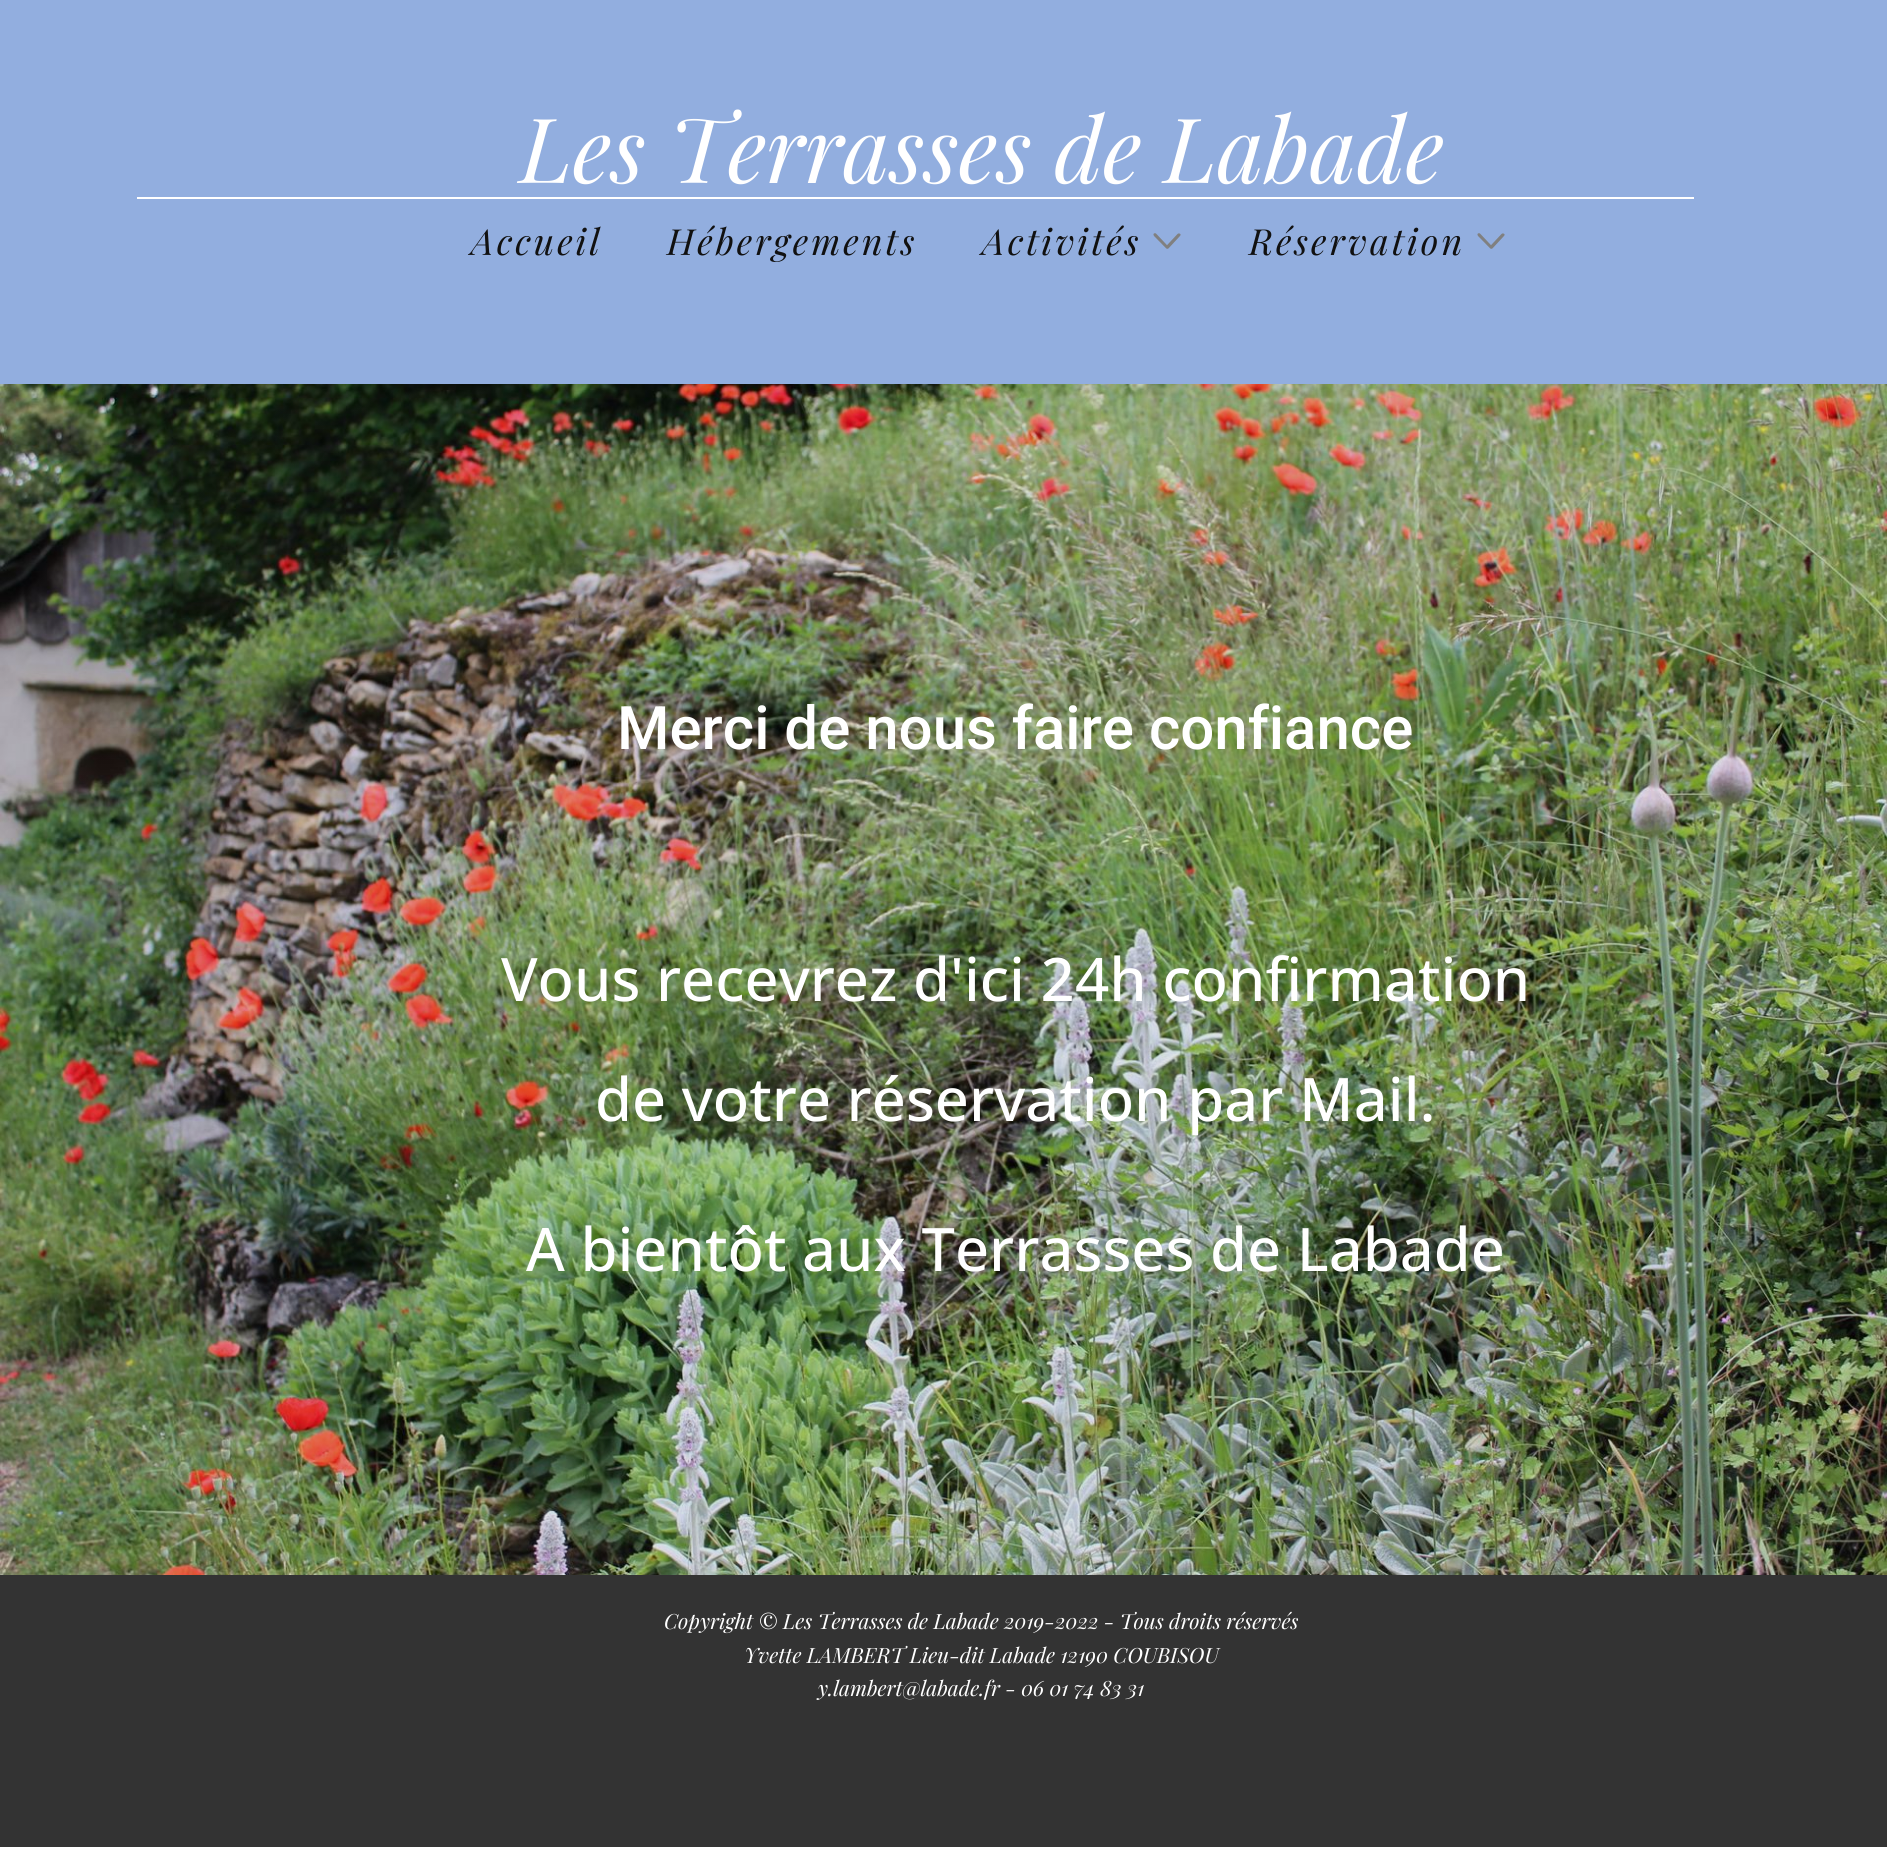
#include <cairo/cairo.h>
#include <math.h>
#include <stddef.h>


static void draw_spaced(cairo_t *cr, double x, double y, const char *s, double letter, double word) {
  cairo_move_to(cr, x, y);
  while (*s) {
    char ch[5] = {0};
    int n = 0;
    do ch[n++] = *s++; while ((*s & 0xC0) == 0x80);
    cairo_show_text(cr, ch);
    cairo_rel_move_to(cr, letter + word * (*ch == ' '), 0);
  }
}

static void draw_image(cairo_t *cr, const char *path, double x, double y, double w, double h) {
  cairo_surface_t *image = cairo_image_surface_create_from_png(path);
  cairo_save(cr);
  cairo_set_source_surface(cr, image, x, y);
  cairo_rectangle(cr, x, y, w, h);
  cairo_fill(cr);
  cairo_restore(cr);
  cairo_surface_destroy(image);
}

static void draw(cairo_t *cr) {
  cairo_set_source_rgb(cr, 1, 1, 1);
  cairo_paint(cr);
  cairo_set_source_rgb(cr, 146 / 255.0, 174 / 255.0, 223 / 255.0);
  cairo_rectangle(cr, 0, 0, 1887, 384);
  cairo_fill(cr);
  cairo_set_source_rgb(cr, 1, 1, 1);
  cairo_rectangle(cr, 137, 197, 1557, 2);
  cairo_fill(cr);
  draw_image(cr, "images/1.png", 1153, 233, 28, 16);
  draw_image(cr, "images/1.png", 1477, 233, 28, 16);
  draw_image(cr, "images/2.png", 0, 384, 1887, 1191);
  cairo_set_source_rgb(cr, 51 / 255.0, 51 / 255.0, 51 / 255.0);
  cairo_rectangle(cr, 0, 1575, 1887, 272);
  cairo_fill(cr);
  cairo_select_font_face(cr, "Playfair Display", CAIRO_FONT_SLANT_ITALIC, CAIRO_FONT_WEIGHT_NORMAL);
  cairo_set_font_size(cr, 90);
  cairo_set_source_rgb(cr, 1, 1, 1);
  cairo_move_to(cr, 520, 183);
  cairo_show_text(cr, "Les Terrasses de Labade");
  cairo_set_font_size(cr, 36);
  cairo_set_source_rgb(cr, 17 / 255.0, 17 / 255.0, 17 / 255.0);
  draw_spaced(cr, 471, 255, "Accueil", 3, 0);
  draw_spaced(cr, 667, 255, "Hébergements", 3, 0);
  draw_spaced(cr, 982, 255, "Activités", 3, 0);
  draw_spaced(cr, 1249, 255, "Réservation", 3, 0);
  cairo_select_font_face(cr, "Roboto Medium", CAIRO_FONT_SLANT_NORMAL, CAIRO_FONT_WEIGHT_NORMAL);
  cairo_set_font_size(cr, 60);
  cairo_set_source_rgb(cr, 1, 1, 1);
  cairo_move_to(cr, 617, 749);
  cairo_show_text(cr, "Merci de nous faire confiance");
  cairo_select_font_face(cr, "Open Sans Medium", CAIRO_FONT_SLANT_NORMAL, CAIRO_FONT_WEIGHT_NORMAL);
  cairo_move_to(cr, 501, 1001);
  cairo_show_text(cr, "Vous recevrez d'ici 24h confirmation");
  cairo_move_to(cr, 595, 1121);
  cairo_show_text(cr, "de votre réservation par Mail.");
  cairo_move_to(cr, 526, 1271);
  cairo_show_text(cr, "A bientôt aux Terrasses de Labade");
  cairo_select_font_face(cr, "Playfair Display", CAIRO_FONT_SLANT_ITALIC, CAIRO_FONT_WEIGHT_NORMAL);
  cairo_set_font_size(cr, 21);
  cairo_move_to(cr, 664, 1629);
  cairo_show_text(cr, "Copyright © Les Terrasses de Labade 2019-2022 - Tous droits réservés");
  cairo_move_to(cr, 744, 1663);
  cairo_show_text(cr, "Yvette LAMBERT Lieu-dit Labade 12190 COUBISOU");
  cairo_move_to(cr, 818, 1696);
  cairo_show_text(cr, "y.lambert@labade.fr - 06 01 74 83 31");
}

int main(void) {
  cairo_surface_t *surface = cairo_image_surface_create(CAIRO_FORMAT_RGB24, 1887, 1862);
  cairo_t *cr = cairo_create(surface);
  cairo_font_options_t *options = cairo_font_options_create();
  cairo_font_options_set_hint_metrics(options, CAIRO_HINT_METRICS_OFF);
  cairo_font_options_set_hint_style(options, CAIRO_HINT_STYLE_NONE);
  cairo_set_font_options(cr, options);
  cairo_set_miter_limit(cr, 4);
  draw(cr);
  cairo_surface_write_to_png(surface, "out.png");
  cairo_font_options_destroy(options);
  cairo_destroy(cr);
  cairo_surface_destroy(surface);
  return 0;
}
